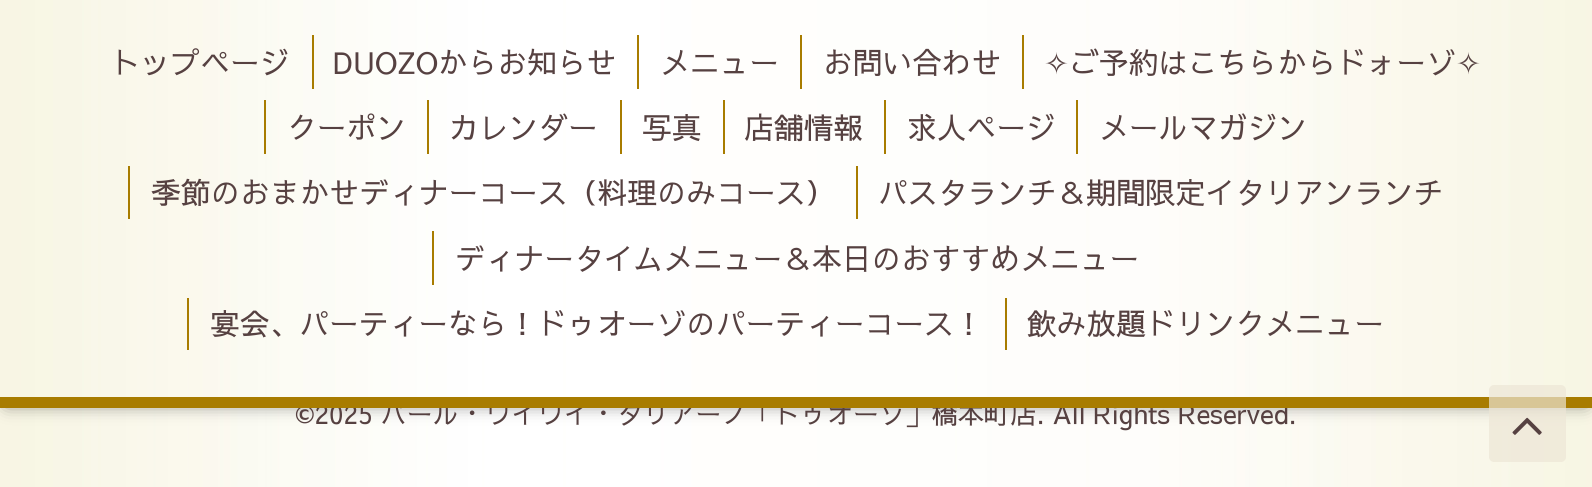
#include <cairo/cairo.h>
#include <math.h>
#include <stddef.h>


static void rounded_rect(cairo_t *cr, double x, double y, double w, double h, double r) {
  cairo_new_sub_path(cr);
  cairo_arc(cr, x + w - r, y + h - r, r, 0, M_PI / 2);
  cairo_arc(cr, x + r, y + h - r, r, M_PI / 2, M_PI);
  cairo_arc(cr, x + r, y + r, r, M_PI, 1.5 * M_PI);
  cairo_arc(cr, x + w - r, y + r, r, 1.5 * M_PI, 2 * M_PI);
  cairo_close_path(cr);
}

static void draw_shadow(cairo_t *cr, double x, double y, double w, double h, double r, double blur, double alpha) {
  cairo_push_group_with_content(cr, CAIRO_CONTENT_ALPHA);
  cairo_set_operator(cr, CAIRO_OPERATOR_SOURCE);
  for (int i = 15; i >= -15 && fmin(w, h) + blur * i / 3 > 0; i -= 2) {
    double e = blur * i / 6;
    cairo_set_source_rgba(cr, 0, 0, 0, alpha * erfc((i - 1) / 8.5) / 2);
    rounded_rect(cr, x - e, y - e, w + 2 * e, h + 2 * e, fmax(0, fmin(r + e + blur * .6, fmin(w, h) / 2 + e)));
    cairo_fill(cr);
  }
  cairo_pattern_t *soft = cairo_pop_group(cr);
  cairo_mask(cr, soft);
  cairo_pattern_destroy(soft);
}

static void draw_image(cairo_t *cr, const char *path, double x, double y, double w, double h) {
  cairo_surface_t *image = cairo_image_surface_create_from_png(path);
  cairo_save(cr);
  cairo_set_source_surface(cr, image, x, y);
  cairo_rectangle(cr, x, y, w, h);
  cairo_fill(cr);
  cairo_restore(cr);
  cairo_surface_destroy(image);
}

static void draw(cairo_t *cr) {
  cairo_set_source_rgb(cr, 1, 1, 1);
  cairo_paint(cr);
  draw_image(cr, "images/2.png", 0, 408, 1592, 79);
  cairo_set_source_rgb(cr, 0, 0, 0);
  draw_shadow(cr, 7, 9, 1579, 394, 0, 9, 0.6);
  draw_image(cr, "images/1.png", 0, 0, 1592, 397);
  cairo_set_source_rgb(cr, 168 / 255.0, 124 / 255.0, 0);
  cairo_rectangle(cr, 312, 35, 2, 54);
  cairo_fill(cr);
  cairo_rectangle(cr, 637, 35, 2, 54);
  cairo_fill(cr);
  cairo_rectangle(cr, 800, 35, 2, 54);
  cairo_fill(cr);
  cairo_rectangle(cr, 1022, 35, 2, 54);
  cairo_fill(cr);
  cairo_rectangle(cr, 264, 100, 2, 54);
  cairo_fill(cr);
  cairo_rectangle(cr, 427, 100, 2, 54);
  cairo_fill(cr);
  cairo_rectangle(cr, 620, 100, 2, 54);
  cairo_fill(cr);
  cairo_rectangle(cr, 723, 100, 2, 54);
  cairo_fill(cr);
  cairo_rectangle(cr, 884, 100, 2, 54);
  cairo_fill(cr);
  cairo_rectangle(cr, 1076, 100, 2, 54);
  cairo_fill(cr);
  cairo_rectangle(cr, 128, 166, 2, 53);
  cairo_fill(cr);
  cairo_rectangle(cr, 856, 166, 2, 53);
  cairo_fill(cr);
  cairo_rectangle(cr, 432, 231, 2, 54);
  cairo_fill(cr);
  cairo_rectangle(cr, 187, 298, 2, 52);
  cairo_fill(cr);
  cairo_rectangle(cr, 1005, 298, 2, 52);
  cairo_fill(cr);
  cairo_select_font_face(cr, "Sawarabi Gothic", CAIRO_FONT_SLANT_NORMAL, CAIRO_FONT_WEIGHT_NORMAL);
  cairo_set_font_size(cr, 29.75);
  cairo_set_source_rgb(cr, 86 / 255.0, 65 / 255.0, 65 / 255.0);
  cairo_move_to(cr, 111, 74);
  cairo_show_text(cr, "トップページ");
  cairo_move_to(cr, 333, 74);
  cairo_show_text(cr, "DUOZOからお知らせ");
  cairo_move_to(cr, 660, 74);
  cairo_show_text(cr, "メニュー");
  cairo_move_to(cr, 823, 74);
  cairo_show_text(cr, "お問い合わせ");
  cairo_select_font_face(cr, "DejaVu Sans", CAIRO_FONT_SLANT_NORMAL, CAIRO_FONT_WEIGHT_NORMAL);
  cairo_move_to(cr, 1044, 74);
  cairo_show_text(cr, "✧");
  cairo_select_font_face(cr, "Sawarabi Gothic", CAIRO_FONT_SLANT_NORMAL, CAIRO_FONT_WEIGHT_NORMAL);
  cairo_move_to(cr, 1069, 74);
  cairo_show_text(cr, "ご予約はこちらからドォーゾ");
  cairo_select_font_face(cr, "DejaVu Sans", CAIRO_FONT_SLANT_NORMAL, CAIRO_FONT_WEIGHT_NORMAL);
  cairo_move_to(cr, 1456, 74);
  cairo_show_text(cr, "✧");
  cairo_select_font_face(cr, "Sawarabi Gothic", CAIRO_FONT_SLANT_NORMAL, CAIRO_FONT_WEIGHT_NORMAL);
  cairo_move_to(cr, 287, 139);
  cairo_show_text(cr, "クーポン");
  cairo_move_to(cr, 449, 139);
  cairo_show_text(cr, "カレンダー");
  cairo_move_to(cr, 642, 139);
  cairo_show_text(cr, "写真");
  cairo_move_to(cr, 744, 139);
  cairo_show_text(cr, "店舗情報");
  cairo_move_to(cr, 907, 139);
  cairo_show_text(cr, "求人ページ");
  cairo_move_to(cr, 1099, 139);
  cairo_show_text(cr, "メールマガジン");
  cairo_move_to(cr, 151, 204);
  cairo_show_text(cr, "季節のおまかせディナーコース（料理のみコース）");
  cairo_move_to(cr, 878, 204);
  cairo_show_text(cr, "パスタランチ＆期間限定イタリアンランチ");
  cairo_move_to(cr, 455, 270);
  cairo_show_text(cr, "ディナータイムメニュー＆本日のおすすめメニュー");
  cairo_move_to(cr, 210, 335);
  cairo_show_text(cr, "宴会、パーティーなら！ドゥオーゾのパーティーコース！");
  cairo_move_to(cr, 1027, 335);
  cairo_show_text(cr, "飲み放題ドリンクメニュー");
  cairo_set_font_size(cr, 26.25);
  cairo_move_to(cr, 295, 424);
  cairo_show_text(cr, "©2025 バール・ワイワイ・タリアーノ「ドゥオーゾ」橋本町店. All Rights Reserved.");
  cairo_set_source_rgb(cr, 168 / 255.0, 124 / 255.0, 0);
  cairo_rectangle(cr, 0, 397, 1592, 11);
  cairo_fill(cr);
  cairo_set_source_rgba(cr, 237 / 255.0, 230 / 255.0, 214 / 255.0, 0.7);
  rounded_rect(cr, 1489, 385, 77, 77, 5);
  cairo_fill(cr);
  draw_image(cr, "images/3.png", 1512, 417, 30, 18);
}

int main(void) {
  cairo_surface_t *surface = cairo_image_surface_create(CAIRO_FORMAT_RGB24, 1592, 487);
  cairo_t *cr = cairo_create(surface);
  cairo_font_options_t *options = cairo_font_options_create();
  cairo_font_options_set_hint_metrics(options, CAIRO_HINT_METRICS_OFF);
  cairo_font_options_set_hint_style(options, CAIRO_HINT_STYLE_NONE);
  cairo_set_font_options(cr, options);
  cairo_set_miter_limit(cr, 4);
  draw(cr);
  cairo_surface_write_to_png(surface, "out.png");
  cairo_font_options_destroy(options);
  cairo_destroy(cr);
  cairo_surface_destroy(surface);
  return 0;
}
